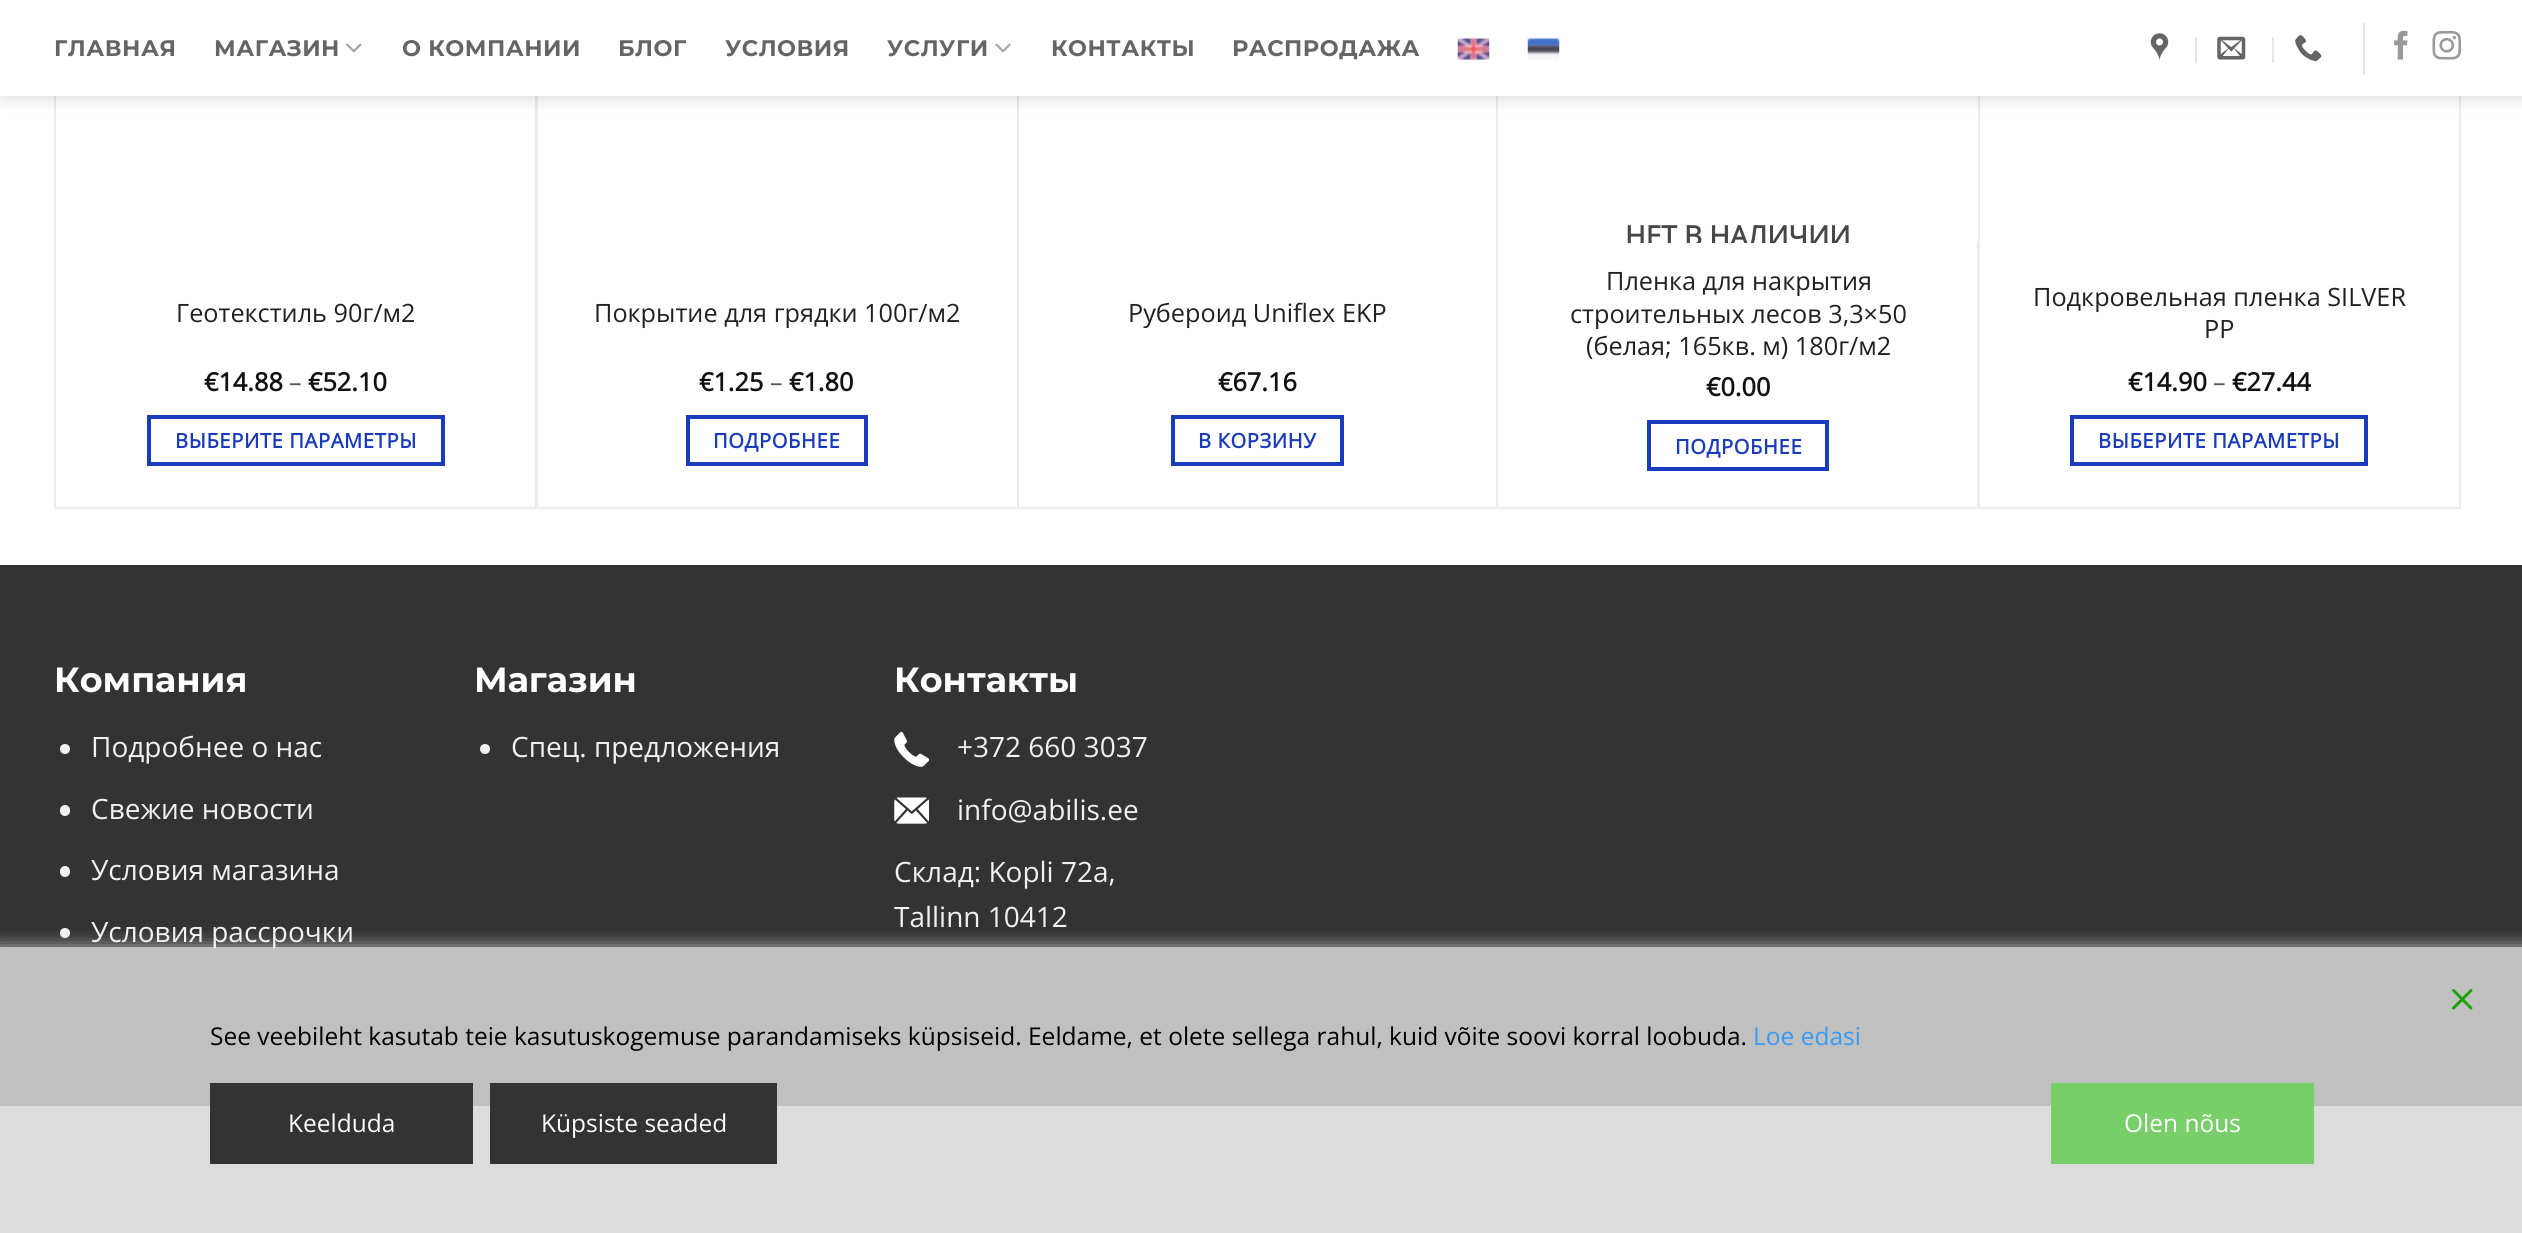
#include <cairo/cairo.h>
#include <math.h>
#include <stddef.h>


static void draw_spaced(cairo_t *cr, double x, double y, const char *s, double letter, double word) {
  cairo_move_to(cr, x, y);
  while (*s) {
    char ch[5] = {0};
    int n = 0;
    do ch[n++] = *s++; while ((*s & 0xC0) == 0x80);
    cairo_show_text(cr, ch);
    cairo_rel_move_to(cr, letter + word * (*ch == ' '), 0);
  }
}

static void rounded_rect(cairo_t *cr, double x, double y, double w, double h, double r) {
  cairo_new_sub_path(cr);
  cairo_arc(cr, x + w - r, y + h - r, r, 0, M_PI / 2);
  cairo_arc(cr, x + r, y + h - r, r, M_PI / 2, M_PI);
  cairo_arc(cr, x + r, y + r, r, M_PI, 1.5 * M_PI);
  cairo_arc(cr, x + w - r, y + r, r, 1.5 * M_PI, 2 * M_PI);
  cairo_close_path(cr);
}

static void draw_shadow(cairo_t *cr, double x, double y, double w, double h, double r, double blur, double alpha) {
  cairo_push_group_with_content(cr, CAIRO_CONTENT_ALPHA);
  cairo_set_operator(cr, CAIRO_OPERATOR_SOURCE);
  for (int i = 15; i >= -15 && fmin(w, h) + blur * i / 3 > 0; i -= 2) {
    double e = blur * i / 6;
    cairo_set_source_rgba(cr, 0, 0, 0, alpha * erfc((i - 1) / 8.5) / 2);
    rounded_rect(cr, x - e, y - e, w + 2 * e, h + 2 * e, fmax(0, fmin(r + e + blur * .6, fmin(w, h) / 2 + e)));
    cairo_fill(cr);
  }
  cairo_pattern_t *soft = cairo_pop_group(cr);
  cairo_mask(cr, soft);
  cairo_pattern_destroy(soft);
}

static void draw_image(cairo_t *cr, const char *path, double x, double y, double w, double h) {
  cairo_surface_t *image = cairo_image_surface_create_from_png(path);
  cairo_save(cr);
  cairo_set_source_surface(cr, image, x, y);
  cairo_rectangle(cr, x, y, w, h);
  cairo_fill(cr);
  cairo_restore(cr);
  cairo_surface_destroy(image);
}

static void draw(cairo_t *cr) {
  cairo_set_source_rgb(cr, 1, 1, 1);
  cairo_paint(cr);
  cairo_rectangle(cr, 55, -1, 481, 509);
  cairo_set_source_rgb(cr, 236 / 255.0, 236 / 255.0, 236 / 255.0);
  cairo_stroke(cr);
  cairo_rectangle(cr, 537, -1, 481, 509);
  cairo_stroke(cr);
  cairo_rectangle(cr, 1018, -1, 479, 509);
  cairo_stroke(cr);
  cairo_rectangle(cr, 1497, -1, 481, 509);
  cairo_stroke(cr);
  cairo_set_source_rgba(cr, 1, 1, 1, 0.81);
  cairo_rectangle(cr, 1977, 96, 1, 147);
  cairo_fill(cr);
  cairo_rectangle(cr, 1979, -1, 481, 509);
  cairo_set_source_rgb(cr, 236 / 255.0, 236 / 255.0, 236 / 255.0);
  cairo_stroke(cr);
  cairo_set_source_rgb(cr, 0, 0, 0);
  draw_shadow(cr, 2, 2, 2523, 96, 0, 9, 0.15);
  cairo_set_source_rgb(cr, 1, 1, 1);
  cairo_rectangle(cr, 0, 0, 2522, 96);
  cairo_fill(cr);
  draw_image(cr, "images/1.png", 346, 43, 16, 10);
  draw_image(cr, "images/2.png", 995, 43, 16, 10);
  draw_image(cr, "images/3.png", 1457, 37, 33, 23);
  draw_image(cr, "images/4.png", 1527, 37, 33, 23);
  draw_image(cr, "images/5.png", 2150, 33, 19, 28);
  cairo_set_source_rgb(cr, 230 / 255.0, 230 / 255.0, 230 / 255.0);
  cairo_rectangle(cr, 2195, 37, 2, 26);
  cairo_fill(cr);
  draw_image(cr, "images/6.png", 2217, 36, 29, 24);
  cairo_rectangle(cr, 2272, 37, 2, 26);
  cairo_fill(cr);
  draw_image(cr, "images/7.png", 2295, 35, 27, 27);
  cairo_rectangle(cr, 2363, 23, 2, 52);
  cairo_fill(cr);
  draw_image(cr, "images/8.png", 2394, 31, 14, 29);
  draw_image(cr, "images/9.png", 2432, 31, 29, 29);
  cairo_rectangle(cr, 149, 417, 294, 47);
  cairo_set_source_rgb(cr, 26 / 255.0, 59 / 255.0, 188 / 255.0);
  cairo_set_line_width(cr, 4);
  cairo_stroke(cr);
  cairo_rectangle(cr, 688, 417, 178, 47);
  cairo_stroke(cr);
  cairo_rectangle(cr, 1173, 417, 169, 47);
  cairo_stroke(cr);
  cairo_rectangle(cr, 1649, 422, 178, 47);
  cairo_stroke(cr);
  cairo_rectangle(cr, 2072, 417, 294, 47);
  cairo_stroke(cr);
  cairo_set_source_rgb(cr, 51 / 255.0, 51 / 255.0, 51 / 255.0);
  cairo_rectangle(cr, 0, 565, 2522, 541);
  cairo_fill(cr);
  cairo_set_source_rgb(cr, 241 / 255.0, 241 / 255.0, 241 / 255.0);
  cairo_arc(cr, 65, 749, 5, 0, 2 * M_PI);
  cairo_fill(cr);
  rounded_rect(cr, 60, 805, 10, 11, 5);
  cairo_fill(cr);
  rounded_rect(cr, 60, 866, 10, 11, 5);
  cairo_fill(cr);
  cairo_arc(cr, 65, 933, 5, 0, 2 * M_PI);
  cairo_fill(cr);
  cairo_arc(cr, 485, 749, 5, 0, 2 * M_PI);
  cairo_fill(cr);
  draw_image(cr, "images/10.png", 894, 731, 35, 36);
  draw_image(cr, "images/11.png", 894, 797, 35, 27);
  cairo_set_source_rgb(cr, 197 / 255.0, 192 / 255.0, 192 / 255.0);
  cairo_rectangle(cr, 0, 1106, 2522, 127);
  cairo_fill(cr);
  cairo_save(cr);
  cairo_rectangle(cr, 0, 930, 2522, 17);
  cairo_clip(cr);
  cairo_set_source_rgb(cr, 221 / 255.0, 221 / 255.0, 221 / 255.0);
  draw_shadow(cr, -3, 949, 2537, 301, 0, 9.5, 1);
  cairo_restore(cr);
  cairo_select_font_face(cr, "Montserrat Thin", CAIRO_FONT_SLANT_NORMAL, CAIRO_FONT_WEIGHT_NORMAL);
  cairo_set_font_size(cr, 22.5);
  cairo_set_source_rgb(cr, 101 / 255.0, 101 / 255.0, 101 / 255.0);
  draw_spaced(cr, 54, 56, "ГЛАВНАЯ", 0.5, 0);
  draw_spaced(cr, 214, 56, "МАГАЗИН", 0.5, 0);
  draw_spaced(cr, 402, 56, "О КОМПАНИИ", 0.5, 0);
  draw_spaced(cr, 618, 56, "БЛОГ", 0.5, 0);
  draw_spaced(cr, 725, 56, "УСЛОВИЯ", 0.5, 0);
  draw_spaced(cr, 887, 56, "УСЛУГИ", 0.5, 0);
  draw_spaced(cr, 1051, 56, "КОНТАКТЫ", 0.5, 0);
  draw_spaced(cr, 1232, 56, "РАСПРОДАЖА", 0.5, 0);
  cairo_select_font_face(cr, "Open Sans", CAIRO_FONT_SLANT_NORMAL, CAIRO_FONT_WEIGHT_NORMAL);
  cairo_set_font_size(cr, 25.25);
  cairo_set_source_rgb(cr, 33 / 255.0, 33 / 255.0, 33 / 255.0);
  cairo_move_to(cr, 176, 322);
  cairo_show_text(cr, "Геотекстиль 90г/м2");
  cairo_select_font_face(cr, "Open Sans", CAIRO_FONT_SLANT_NORMAL, CAIRO_FONT_WEIGHT_BOLD);
  cairo_set_source_rgb(cr, 17 / 255.0, 17 / 255.0, 17 / 255.0);
  cairo_move_to(cr, 204, 391);
  cairo_show_text(cr, "€14.88");
  cairo_select_font_face(cr, "Open Sans", CAIRO_FONT_SLANT_NORMAL, CAIRO_FONT_WEIGHT_NORMAL);
  cairo_set_source_rgb(cr, 86 / 255.0, 86 / 255.0, 86 / 255.0);
  cairo_move_to(cr, 289, 391);
  cairo_show_text(cr, "–");
  cairo_select_font_face(cr, "Open Sans", CAIRO_FONT_SLANT_NORMAL, CAIRO_FONT_WEIGHT_BOLD);
  cairo_set_source_rgb(cr, 17 / 255.0, 17 / 255.0, 17 / 255.0);
  cairo_move_to(cr, 308, 391);
  cairo_show_text(cr, "€52.10");
  cairo_set_font_size(cr, 20.2);
  cairo_set_source_rgb(cr, 26 / 255.0, 59 / 255.0, 188 / 255.0);
  draw_spaced(cr, 175, 448, "ВЫБЕРИТЕ ПАРАМЕТРЫ", 0.6, 0);
  cairo_select_font_face(cr, "Open Sans", CAIRO_FONT_SLANT_NORMAL, CAIRO_FONT_WEIGHT_NORMAL);
  cairo_set_font_size(cr, 25.25);
  cairo_set_source_rgb(cr, 33 / 255.0, 33 / 255.0, 33 / 255.0);
  cairo_move_to(cr, 594, 322);
  cairo_show_text(cr, "Покрытие для грядки 100г/м2");
  cairo_select_font_face(cr, "Open Sans", CAIRO_FONT_SLANT_NORMAL, CAIRO_FONT_WEIGHT_BOLD);
  cairo_set_source_rgb(cr, 17 / 255.0, 17 / 255.0, 17 / 255.0);
  cairo_move_to(cr, 699, 391);
  cairo_show_text(cr, "€1.25");
  cairo_select_font_face(cr, "Open Sans", CAIRO_FONT_SLANT_NORMAL, CAIRO_FONT_WEIGHT_NORMAL);
  cairo_set_source_rgb(cr, 86 / 255.0, 86 / 255.0, 86 / 255.0);
  cairo_move_to(cr, 770, 391);
  cairo_show_text(cr, "–");
  cairo_select_font_face(cr, "Open Sans", CAIRO_FONT_SLANT_NORMAL, CAIRO_FONT_WEIGHT_BOLD);
  cairo_set_source_rgb(cr, 17 / 255.0, 17 / 255.0, 17 / 255.0);
  cairo_move_to(cr, 789, 391);
  cairo_show_text(cr, "€1.80");
  cairo_set_font_size(cr, 20.2);
  cairo_set_source_rgb(cr, 26 / 255.0, 59 / 255.0, 188 / 255.0);
  draw_spaced(cr, 713, 448, "ПОДРОБНЕЕ", 0.6, 0);
  cairo_select_font_face(cr, "Open Sans", CAIRO_FONT_SLANT_NORMAL, CAIRO_FONT_WEIGHT_NORMAL);
  cairo_set_font_size(cr, 25.25);
  cairo_set_source_rgb(cr, 33 / 255.0, 33 / 255.0, 33 / 255.0);
  cairo_move_to(cr, 1128, 322);
  cairo_show_text(cr, "Рубероид Uniflex EKP");
  cairo_select_font_face(cr, "Open Sans", CAIRO_FONT_SLANT_NORMAL, CAIRO_FONT_WEIGHT_BOLD);
  cairo_set_source_rgb(cr, 17 / 255.0, 17 / 255.0, 17 / 255.0);
  cairo_move_to(cr, 1218, 391);
  cairo_show_text(cr, "€67.16");
  cairo_set_font_size(cr, 20.2);
  cairo_set_source_rgb(cr, 26 / 255.0, 59 / 255.0, 188 / 255.0);
  draw_spaced(cr, 1198, 448, "В КОРЗИНУ", 0.6, 0);
  cairo_save(cr);
  cairo_rectangle(cr, 1498, 0, 480, 243);
  cairo_clip(cr);
  cairo_set_font_size(cr, 28);
  cairo_set_source_rgb(cr, 71 / 255.0, 71 / 255.0, 71 / 255.0);
  cairo_move_to(cr, 1625, 246);
  cairo_show_text(cr, "НЕТ В НАЛИЧИИ");
  cairo_restore(cr);
  cairo_select_font_face(cr, "Open Sans", CAIRO_FONT_SLANT_NORMAL, CAIRO_FONT_WEIGHT_NORMAL);
  cairo_set_font_size(cr, 25.25);
  cairo_set_source_rgb(cr, 33 / 255.0, 33 / 255.0, 33 / 255.0);
  cairo_move_to(cr, 1606, 290);
  cairo_show_text(cr, "Пленка для накрытия");
  cairo_move_to(cr, 1570, 323);
  cairo_show_text(cr, "строительных лесов 3,3×50");
  cairo_move_to(cr, 1586, 355);
  cairo_show_text(cr, "(белая; 165кв. м) 180г/м2");
  cairo_select_font_face(cr, "Open Sans", CAIRO_FONT_SLANT_NORMAL, CAIRO_FONT_WEIGHT_BOLD);
  cairo_set_source_rgb(cr, 17 / 255.0, 17 / 255.0, 17 / 255.0);
  cairo_move_to(cr, 1706, 396);
  cairo_show_text(cr, "€0.00");
  cairo_set_font_size(cr, 20.2);
  cairo_set_source_rgb(cr, 26 / 255.0, 59 / 255.0, 188 / 255.0);
  draw_spaced(cr, 1675, 454, "ПОДРОБНЕЕ", 0.6, 0);
  cairo_select_font_face(cr, "Open Sans", CAIRO_FONT_SLANT_NORMAL, CAIRO_FONT_WEIGHT_NORMAL);
  cairo_set_font_size(cr, 25.25);
  cairo_set_source_rgb(cr, 33 / 255.0, 33 / 255.0, 33 / 255.0);
  cairo_move_to(cr, 2033, 306);
  cairo_show_text(cr, "Подкровельная пленка SILVER");
  cairo_move_to(cr, 2204, 338);
  cairo_show_text(cr, "PP");
  cairo_select_font_face(cr, "Open Sans", CAIRO_FONT_SLANT_NORMAL, CAIRO_FONT_WEIGHT_BOLD);
  cairo_set_source_rgb(cr, 17 / 255.0, 17 / 255.0, 17 / 255.0);
  cairo_move_to(cr, 2128, 391);
  cairo_show_text(cr, "€14.90");
  cairo_select_font_face(cr, "Open Sans", CAIRO_FONT_SLANT_NORMAL, CAIRO_FONT_WEIGHT_NORMAL);
  cairo_set_source_rgb(cr, 86 / 255.0, 86 / 255.0, 86 / 255.0);
  cairo_move_to(cr, 2213, 391);
  cairo_show_text(cr, "–");
  cairo_select_font_face(cr, "Open Sans", CAIRO_FONT_SLANT_NORMAL, CAIRO_FONT_WEIGHT_BOLD);
  cairo_set_source_rgb(cr, 17 / 255.0, 17 / 255.0, 17 / 255.0);
  cairo_move_to(cr, 2232, 391);
  cairo_show_text(cr, "€27.44");
  cairo_set_font_size(cr, 20.2);
  cairo_set_source_rgb(cr, 26 / 255.0, 59 / 255.0, 188 / 255.0);
  draw_spaced(cr, 2098, 448, "ВЫБЕРИТЕ ПАРАМЕТРЫ", 0.6, 0);
  cairo_select_font_face(cr, "Montserrat Thin", CAIRO_FONT_SLANT_NORMAL, CAIRO_FONT_WEIGHT_NORMAL);
  cairo_set_font_size(cr, 35);
  cairo_set_source_rgb(cr, 1, 1, 1);
  cairo_move_to(cr, 54, 692);
  cairo_show_text(cr, "Компания");
  cairo_select_font_face(cr, "Open Sans", CAIRO_FONT_SLANT_NORMAL, CAIRO_FONT_WEIGHT_NORMAL);
  cairo_set_font_size(cr, 28);
  cairo_set_source_rgb(cr, 241 / 255.0, 241 / 255.0, 241 / 255.0);
  cairo_move_to(cr, 91, 757);
  cairo_show_text(cr, "Подробнее о нас");
  cairo_move_to(cr, 91, 819);
  cairo_show_text(cr, "Свежие новости");
  cairo_move_to(cr, 91, 880);
  cairo_show_text(cr, "Условия магазина");
  cairo_move_to(cr, 91, 942);
  cairo_show_text(cr, "Условия рассрочки");
  cairo_select_font_face(cr, "Montserrat Thin", CAIRO_FONT_SLANT_NORMAL, CAIRO_FONT_WEIGHT_NORMAL);
  cairo_set_font_size(cr, 35);
  cairo_set_source_rgb(cr, 1, 1, 1);
  cairo_move_to(cr, 474, 692);
  cairo_show_text(cr, "Магазин");
  cairo_select_font_face(cr, "Open Sans", CAIRO_FONT_SLANT_NORMAL, CAIRO_FONT_WEIGHT_NORMAL);
  cairo_set_font_size(cr, 28);
  cairo_set_source_rgb(cr, 241 / 255.0, 241 / 255.0, 241 / 255.0);
  cairo_move_to(cr, 511, 757);
  cairo_show_text(cr, "Спец. предложения");
  cairo_select_font_face(cr, "Montserrat Thin", CAIRO_FONT_SLANT_NORMAL, CAIRO_FONT_WEIGHT_NORMAL);
  cairo_set_font_size(cr, 35);
  cairo_set_source_rgb(cr, 1, 1, 1);
  cairo_move_to(cr, 894, 692);
  cairo_show_text(cr, "Контакты");
  cairo_select_font_face(cr, "Open Sans", CAIRO_FONT_SLANT_NORMAL, CAIRO_FONT_WEIGHT_NORMAL);
  cairo_set_font_size(cr, 28);
  cairo_set_source_rgb(cr, 241 / 255.0, 241 / 255.0, 241 / 255.0);
  cairo_move_to(cr, 957, 757);
  cairo_show_text(cr, "+372 660 3037");
  cairo_move_to(cr, 957, 820);
  cairo_show_text(cr, "info@abilis.ee");
  cairo_move_to(cr, 894, 882);
  cairo_show_text(cr, "Склад: Kopli 72a,");
  cairo_move_to(cr, 894, 927);
  cairo_show_text(cr, "Tallinn 10412");
  cairo_set_source_rgba(cr, 227 / 255.0, 227 / 255.0, 227 / 255.0, 0.8);
  cairo_rectangle(cr, 0, 947, 2522, 286);
  cairo_fill(cr);
  draw_image(cr, "images/12.png", 2452, 989, 21, 21);
  cairo_set_font_size(cr, 24.5);
  cairo_set_source_rgb(cr, 0, 0, 0);
  cairo_move_to(cr, 210, 1045);
  cairo_show_text(cr, "See veebileht kasutab teie kasutuskogemuse parandamiseks küpsiseid. Eeldame, et olete sellega rahul, kuid võite soovi korral loobuda.");
  cairo_set_source_rgb(cr, 53 / 255.0, 155 / 255.0, 245 / 255.0);
  cairo_move_to(cr, 1753, 1045);
  cairo_show_text(cr, "Loe edasi");
  cairo_set_source_rgb(cr, 51 / 255.0, 51 / 255.0, 51 / 255.0);
  cairo_rectangle(cr, 210, 1083, 263, 81);
  cairo_fill(cr);
  cairo_set_source_rgb(cr, 1, 1, 1);
  cairo_move_to(cr, 288, 1132);
  cairo_show_text(cr, "Keelduda");
  cairo_set_source_rgb(cr, 51 / 255.0, 51 / 255.0, 51 / 255.0);
  cairo_rectangle(cr, 490, 1083, 287, 81);
  cairo_fill(cr);
  cairo_set_source_rgb(cr, 1, 1, 1);
  cairo_move_to(cr, 541, 1132);
  cairo_show_text(cr, "Küpsiste seaded");
  cairo_set_source_rgb(cr, 120 / 255.0, 206 / 255.0, 105 / 255.0);
  cairo_rectangle(cr, 2051, 1083, 263, 81);
  cairo_fill(cr);
  cairo_set_source_rgb(cr, 1, 1, 1);
  cairo_move_to(cr, 2124, 1132);
  cairo_show_text(cr, "Olen nõus");
}

int main(void) {
  cairo_surface_t *surface = cairo_image_surface_create(CAIRO_FORMAT_RGB24, 2522, 1233);
  cairo_t *cr = cairo_create(surface);
  cairo_font_options_t *options = cairo_font_options_create();
  cairo_font_options_set_hint_metrics(options, CAIRO_HINT_METRICS_OFF);
  cairo_font_options_set_hint_style(options, CAIRO_HINT_STYLE_NONE);
  cairo_set_font_options(cr, options);
  cairo_set_miter_limit(cr, 4);
  draw(cr);
  cairo_surface_write_to_png(surface, "out.png");
  cairo_font_options_destroy(options);
  cairo_destroy(cr);
  cairo_surface_destroy(surface);
  return 0;
}
